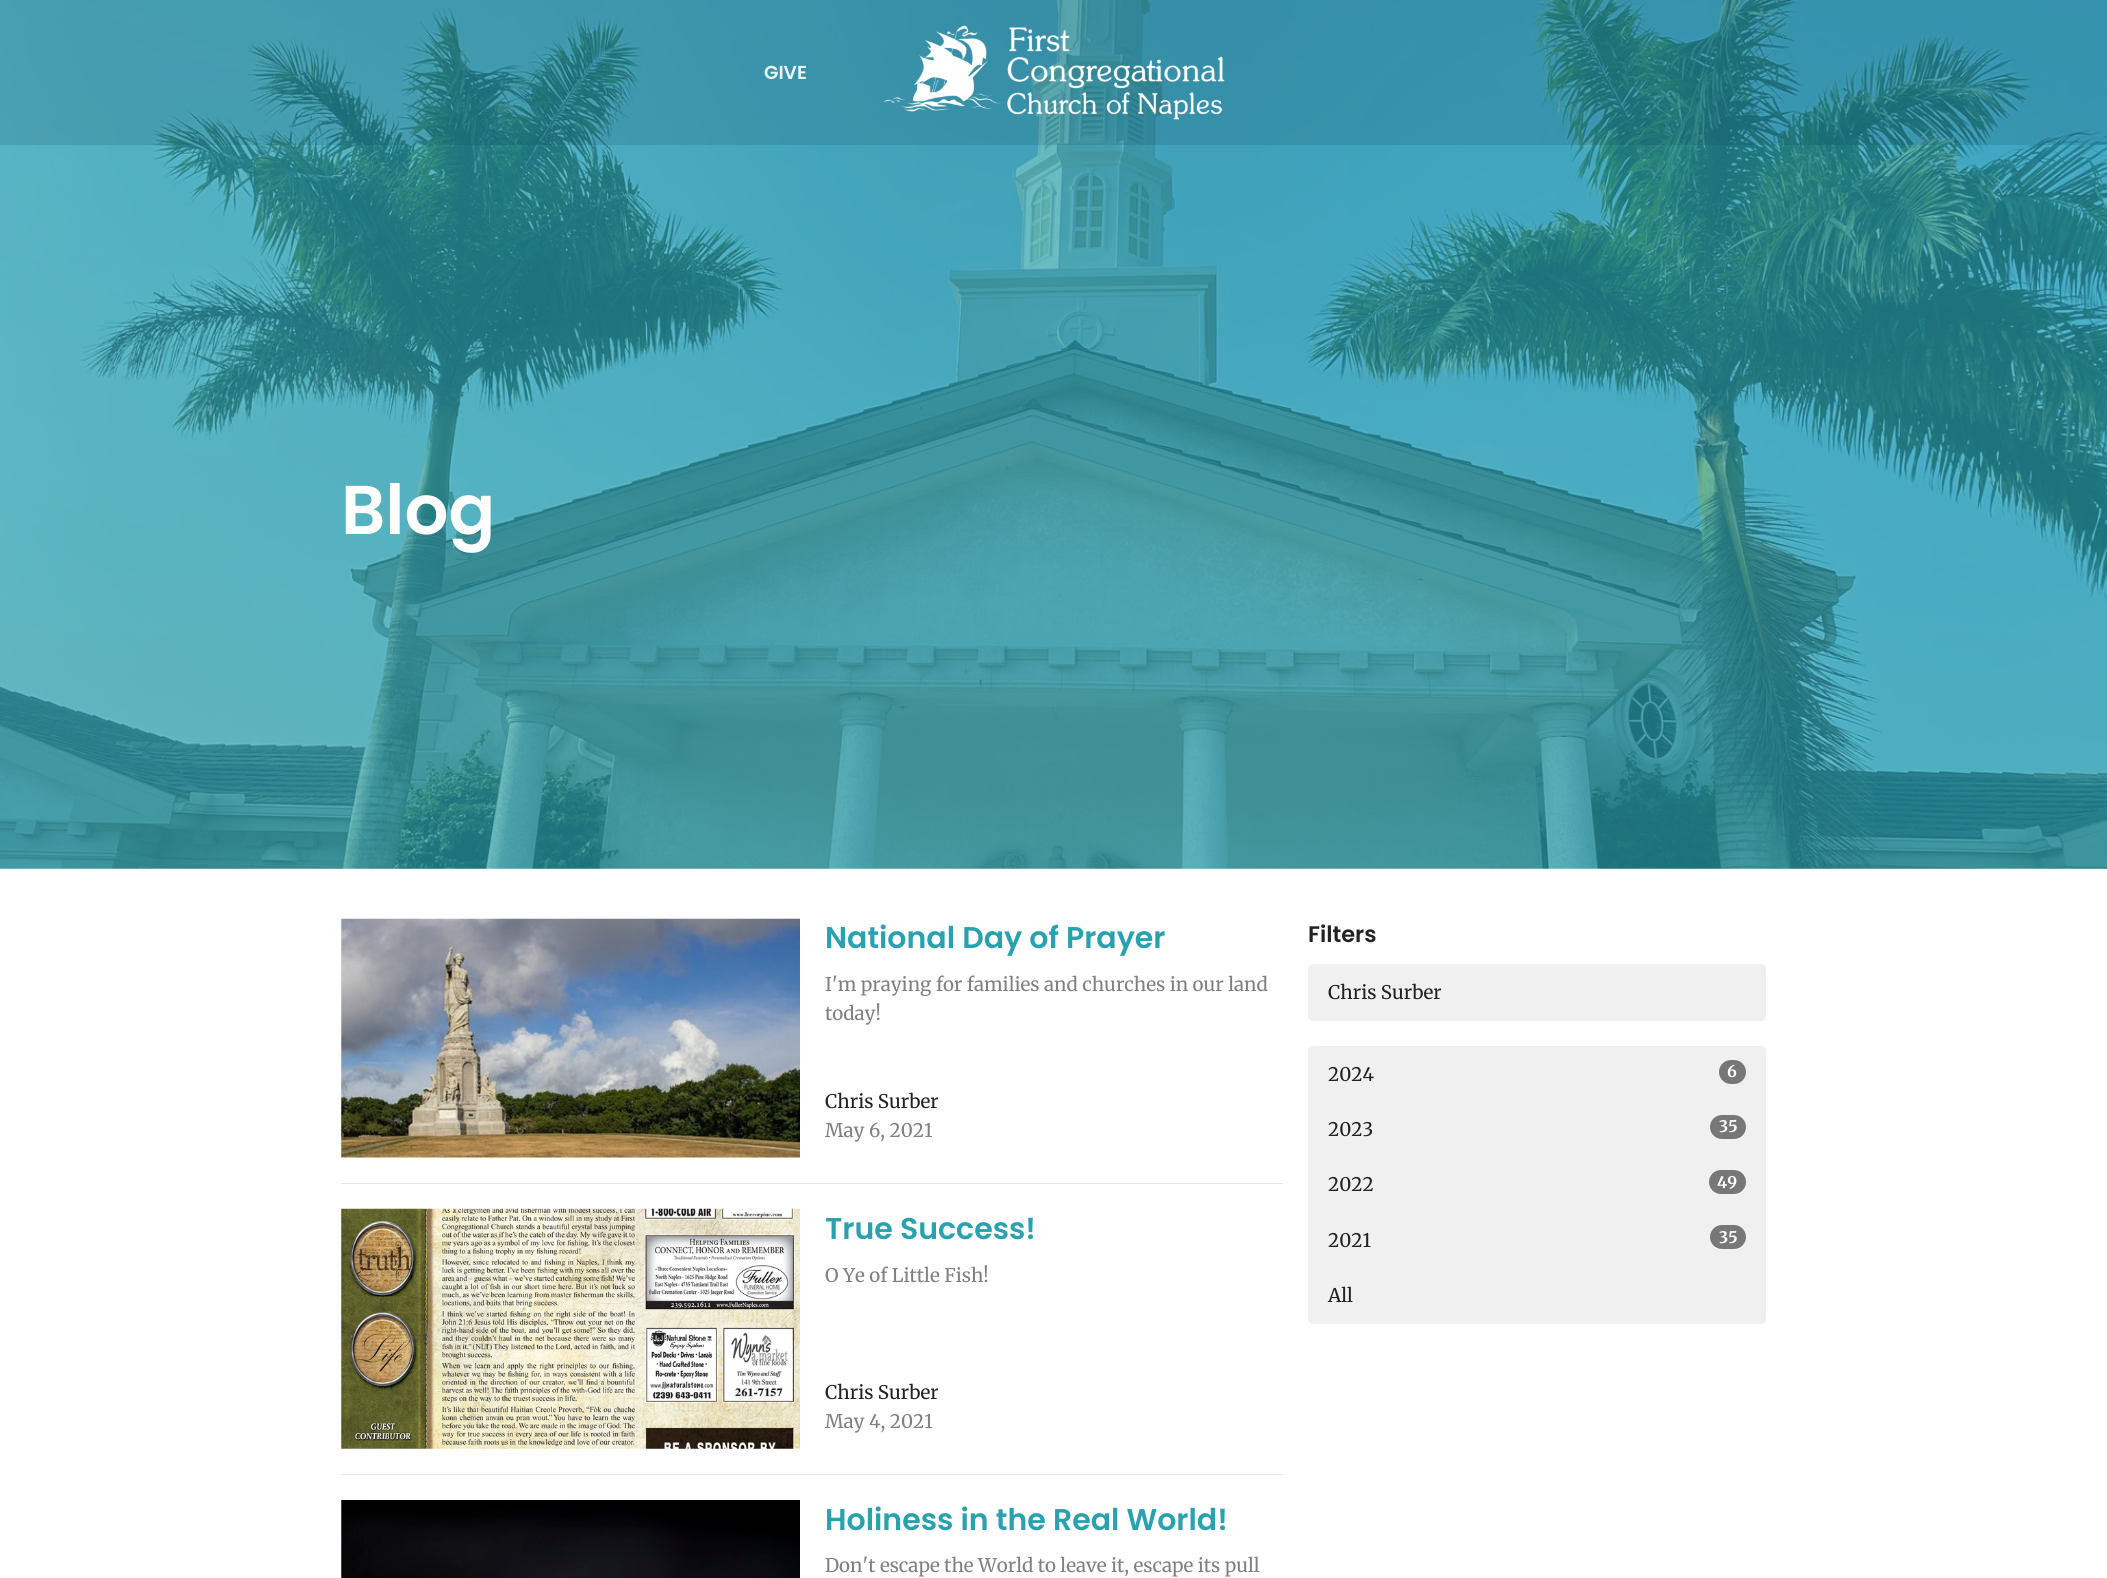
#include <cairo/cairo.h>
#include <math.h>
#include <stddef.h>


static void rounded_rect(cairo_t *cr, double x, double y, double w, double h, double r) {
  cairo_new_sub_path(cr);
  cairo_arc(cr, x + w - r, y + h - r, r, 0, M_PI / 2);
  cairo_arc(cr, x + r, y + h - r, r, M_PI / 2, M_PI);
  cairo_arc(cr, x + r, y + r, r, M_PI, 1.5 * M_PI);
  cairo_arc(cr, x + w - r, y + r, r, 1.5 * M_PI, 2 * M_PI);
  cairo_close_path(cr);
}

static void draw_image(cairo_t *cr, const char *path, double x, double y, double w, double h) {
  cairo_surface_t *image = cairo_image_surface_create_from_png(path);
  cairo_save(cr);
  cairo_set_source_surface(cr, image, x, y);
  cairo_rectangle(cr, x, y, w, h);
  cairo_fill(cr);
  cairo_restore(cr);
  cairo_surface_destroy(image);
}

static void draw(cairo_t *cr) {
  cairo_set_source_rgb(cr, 1, 1, 1);
  cairo_paint(cr);
  draw_image(cr, "images/2.png", 0, 0, 2107, 869);
  cairo_set_source_rgba(cr, 16 / 255.0, 69 / 255.0, 91 / 255.0, 0.17);
  cairo_rectangle(cr, 0, 0, 2107, 145);
  cairo_fill(cr);
  draw_image(cr, "images/1.png", 883, 25, 342, 95);
  cairo_set_source_rgb(cr, 230 / 255.0, 230 / 255.0, 230 / 255.0);
  cairo_rectangle(cr, 341, 1183, 942, 1);
  cairo_fill(cr);
  draw_image(cr, "images/3.png", 341, 918, 459, 240);
  cairo_rectangle(cr, 341, 1474, 942, 1);
  cairo_fill(cr);
  draw_image(cr, "images/4.png", 341, 1208, 459, 241);
  draw_image(cr, "images/5.png", 341, 1500, 459, 78);
  cairo_set_source_rgb(cr, 240 / 255.0, 240 / 255.0, 240 / 255.0);
  rounded_rect(cr, 1308, 964, 458, 57, 5);
  cairo_fill(cr);
  cairo_new_path(cr);
  cairo_move_to(cr, 1313, 1046);
  cairo_line_to(cr, 1761, 1046);
  cairo_curve_to(cr, 1764, 1046, 1766, 1048, 1766, 1051);
  cairo_line_to(cr, 1766, 1103);
  cairo_line_to(cr, 1308, 1103);
  cairo_line_to(cr, 1308, 1051);
  cairo_curve_to(cr, 1308, 1048, 1310, 1046, 1313, 1046);
  cairo_close_path(cr);
  cairo_fill(cr);
  cairo_set_source_rgb(cr, 119 / 255.0, 119 / 255.0, 119 / 255.0);
  rounded_rect(cr, 1719, 1060, 27, 24, 12);
  cairo_fill(cr);
  cairo_set_source_rgb(cr, 240 / 255.0, 240 / 255.0, 240 / 255.0);
  cairo_rectangle(cr, 1308, 1103, 458, 165);
  cairo_fill(cr);
  cairo_set_source_rgb(cr, 119 / 255.0, 119 / 255.0, 119 / 255.0);
  rounded_rect(cr, 1710, 1115, 36, 24, 12);
  cairo_fill(cr);
  rounded_rect(cr, 1709, 1170, 37, 24, 12);
  cairo_fill(cr);
  rounded_rect(cr, 1710, 1225, 36, 24, 12);
  cairo_fill(cr);
  cairo_set_source_rgb(cr, 240 / 255.0, 240 / 255.0, 240 / 255.0);
  cairo_new_path(cr);
  cairo_move_to(cr, 1308, 1268);
  cairo_line_to(cr, 1766, 1268);
  cairo_line_to(cr, 1766, 1319);
  cairo_curve_to(cr, 1766, 1322, 1764, 1324, 1761, 1324);
  cairo_line_to(cr, 1313, 1324);
  cairo_curve_to(cr, 1310, 1324, 1308, 1322, 1308, 1319);
  cairo_close_path(cr);
  cairo_fill(cr);
  cairo_select_font_face(cr, "Poppins SemiBold", CAIRO_FONT_SLANT_NORMAL, CAIRO_FONT_WEIGHT_NORMAL);
  cairo_set_font_size(cr, 18.75);
  cairo_set_source_rgb(cr, 235 / 255.0, 244 / 255.0, 247 / 255.0);
  cairo_move_to(cr, 764, 79);
  cairo_show_text(cr, "GIVE");
  cairo_set_font_size(cr, 69);
  cairo_set_source_rgb(cr, 1, 1, 1);
  cairo_move_to(cr, 341, 534);
  cairo_show_text(cr, "Blog");
  cairo_set_font_size(cr, 30);
  cairo_set_source_rgb(cr, 42 / 255.0, 161 / 255.0, 175 / 255.0);
  cairo_move_to(cr, 825, 948);
  cairo_show_text(cr, "National Day of Prayer");
  cairo_select_font_face(cr, "Merriweather", CAIRO_FONT_SLANT_NORMAL, CAIRO_FONT_WEIGHT_NORMAL);
  cairo_set_font_size(cr, 18.75);
  cairo_set_source_rgb(cr, 128 / 255.0, 128 / 255.0, 128 / 255.0);
  cairo_move_to(cr, 825, 991);
  cairo_show_text(cr, "I'm praying for families and churches in our land");
  cairo_move_to(cr, 825, 1020);
  cairo_show_text(cr, "today!");
  cairo_set_source_rgb(cr, 34 / 255.0, 34 / 255.0, 34 / 255.0);
  cairo_move_to(cr, 825, 1108);
  cairo_show_text(cr, "Chris Surber");
  cairo_set_source_rgb(cr, 128 / 255.0, 128 / 255.0, 128 / 255.0);
  cairo_move_to(cr, 825, 1137);
  cairo_show_text(cr, "May 6, 2021");
  cairo_select_font_face(cr, "Poppins SemiBold", CAIRO_FONT_SLANT_NORMAL, CAIRO_FONT_WEIGHT_NORMAL);
  cairo_set_font_size(cr, 30);
  cairo_set_source_rgb(cr, 42 / 255.0, 161 / 255.0, 175 / 255.0);
  cairo_move_to(cr, 825, 1239);
  cairo_show_text(cr, "True Success!");
  cairo_select_font_face(cr, "Merriweather", CAIRO_FONT_SLANT_NORMAL, CAIRO_FONT_WEIGHT_NORMAL);
  cairo_set_font_size(cr, 18.75);
  cairo_set_source_rgb(cr, 128 / 255.0, 128 / 255.0, 128 / 255.0);
  cairo_move_to(cr, 825, 1282);
  cairo_show_text(cr, "O Ye of Little Fish!");
  cairo_set_source_rgb(cr, 34 / 255.0, 34 / 255.0, 34 / 255.0);
  cairo_move_to(cr, 825, 1399);
  cairo_show_text(cr, "Chris Surber");
  cairo_set_source_rgb(cr, 128 / 255.0, 128 / 255.0, 128 / 255.0);
  cairo_move_to(cr, 825, 1428);
  cairo_show_text(cr, "May 4, 2021");
  cairo_select_font_face(cr, "Poppins SemiBold", CAIRO_FONT_SLANT_NORMAL, CAIRO_FONT_WEIGHT_NORMAL);
  cairo_set_font_size(cr, 30);
  cairo_set_source_rgb(cr, 42 / 255.0, 161 / 255.0, 175 / 255.0);
  cairo_move_to(cr, 825, 1530);
  cairo_show_text(cr, "Holiness in the Real World!");
  cairo_select_font_face(cr, "Merriweather", CAIRO_FONT_SLANT_NORMAL, CAIRO_FONT_WEIGHT_NORMAL);
  cairo_set_font_size(cr, 18.75);
  cairo_set_source_rgb(cr, 128 / 255.0, 128 / 255.0, 128 / 255.0);
  cairo_move_to(cr, 825, 1572);
  cairo_show_text(cr, "Don't escape the World to leave it, escape its pull");
  cairo_select_font_face(cr, "Poppins SemiBold", CAIRO_FONT_SLANT_NORMAL, CAIRO_FONT_WEIGHT_NORMAL);
  cairo_set_font_size(cr, 22.5);
  cairo_set_source_rgb(cr, 34 / 255.0, 34 / 255.0, 34 / 255.0);
  cairo_move_to(cr, 1308, 942);
  cairo_show_text(cr, "Filters");
  cairo_select_font_face(cr, "Merriweather", CAIRO_FONT_SLANT_NORMAL, CAIRO_FONT_WEIGHT_NORMAL);
  cairo_set_font_size(cr, 18.75);
  cairo_move_to(cr, 1328, 999);
  cairo_show_text(cr, "Chris Surber");
  cairo_move_to(cr, 1328, 1081);
  cairo_show_text(cr, "2024");
  cairo_select_font_face(cr, "Merriweather", CAIRO_FONT_SLANT_NORMAL, CAIRO_FONT_WEIGHT_BOLD);
  cairo_set_font_size(cr, 16);
  cairo_set_source_rgb(cr, 1, 1, 1);
  cairo_move_to(cr, 1727, 1077);
  cairo_show_text(cr, "6");
  cairo_select_font_face(cr, "Merriweather", CAIRO_FONT_SLANT_NORMAL, CAIRO_FONT_WEIGHT_NORMAL);
  cairo_set_font_size(cr, 18.75);
  cairo_set_source_rgb(cr, 34 / 255.0, 34 / 255.0, 34 / 255.0);
  cairo_move_to(cr, 1328, 1136);
  cairo_show_text(cr, "2023");
  cairo_select_font_face(cr, "Merriweather", CAIRO_FONT_SLANT_NORMAL, CAIRO_FONT_WEIGHT_BOLD);
  cairo_set_font_size(cr, 16);
  cairo_set_source_rgb(cr, 1, 1, 1);
  cairo_move_to(cr, 1719, 1132);
  cairo_show_text(cr, "35");
  cairo_select_font_face(cr, "Merriweather", CAIRO_FONT_SLANT_NORMAL, CAIRO_FONT_WEIGHT_NORMAL);
  cairo_set_font_size(cr, 18.75);
  cairo_set_source_rgb(cr, 34 / 255.0, 34 / 255.0, 34 / 255.0);
  cairo_move_to(cr, 1328, 1191);
  cairo_show_text(cr, "2022");
  cairo_select_font_face(cr, "Merriweather", CAIRO_FONT_SLANT_NORMAL, CAIRO_FONT_WEIGHT_BOLD);
  cairo_set_font_size(cr, 16);
  cairo_set_source_rgb(cr, 1, 1, 1);
  cairo_move_to(cr, 1717, 1188);
  cairo_show_text(cr, "49");
  cairo_select_font_face(cr, "Merriweather", CAIRO_FONT_SLANT_NORMAL, CAIRO_FONT_WEIGHT_NORMAL);
  cairo_set_font_size(cr, 18.75);
  cairo_set_source_rgb(cr, 34 / 255.0, 34 / 255.0, 34 / 255.0);
  cairo_move_to(cr, 1328, 1247);
  cairo_show_text(cr, "2021");
  cairo_select_font_face(cr, "Merriweather", CAIRO_FONT_SLANT_NORMAL, CAIRO_FONT_WEIGHT_BOLD);
  cairo_set_font_size(cr, 16);
  cairo_set_source_rgb(cr, 1, 1, 1);
  cairo_move_to(cr, 1719, 1243);
  cairo_show_text(cr, "35");
  cairo_select_font_face(cr, "Merriweather", CAIRO_FONT_SLANT_NORMAL, CAIRO_FONT_WEIGHT_NORMAL);
  cairo_set_font_size(cr, 18.75);
  cairo_set_source_rgb(cr, 34 / 255.0, 34 / 255.0, 34 / 255.0);
  cairo_move_to(cr, 1328, 1302);
  cairo_show_text(cr, "All");
}

int main(void) {
  cairo_surface_t *surface = cairo_image_surface_create(CAIRO_FORMAT_RGB24, 2107, 1578);
  cairo_t *cr = cairo_create(surface);
  cairo_font_options_t *options = cairo_font_options_create();
  cairo_font_options_set_hint_metrics(options, CAIRO_HINT_METRICS_OFF);
  cairo_font_options_set_hint_style(options, CAIRO_HINT_STYLE_NONE);
  cairo_set_font_options(cr, options);
  cairo_set_miter_limit(cr, 4);
  draw(cr);
  cairo_surface_write_to_png(surface, "out.png");
  cairo_font_options_destroy(options);
  cairo_destroy(cr);
  cairo_surface_destroy(surface);
  return 0;
}
